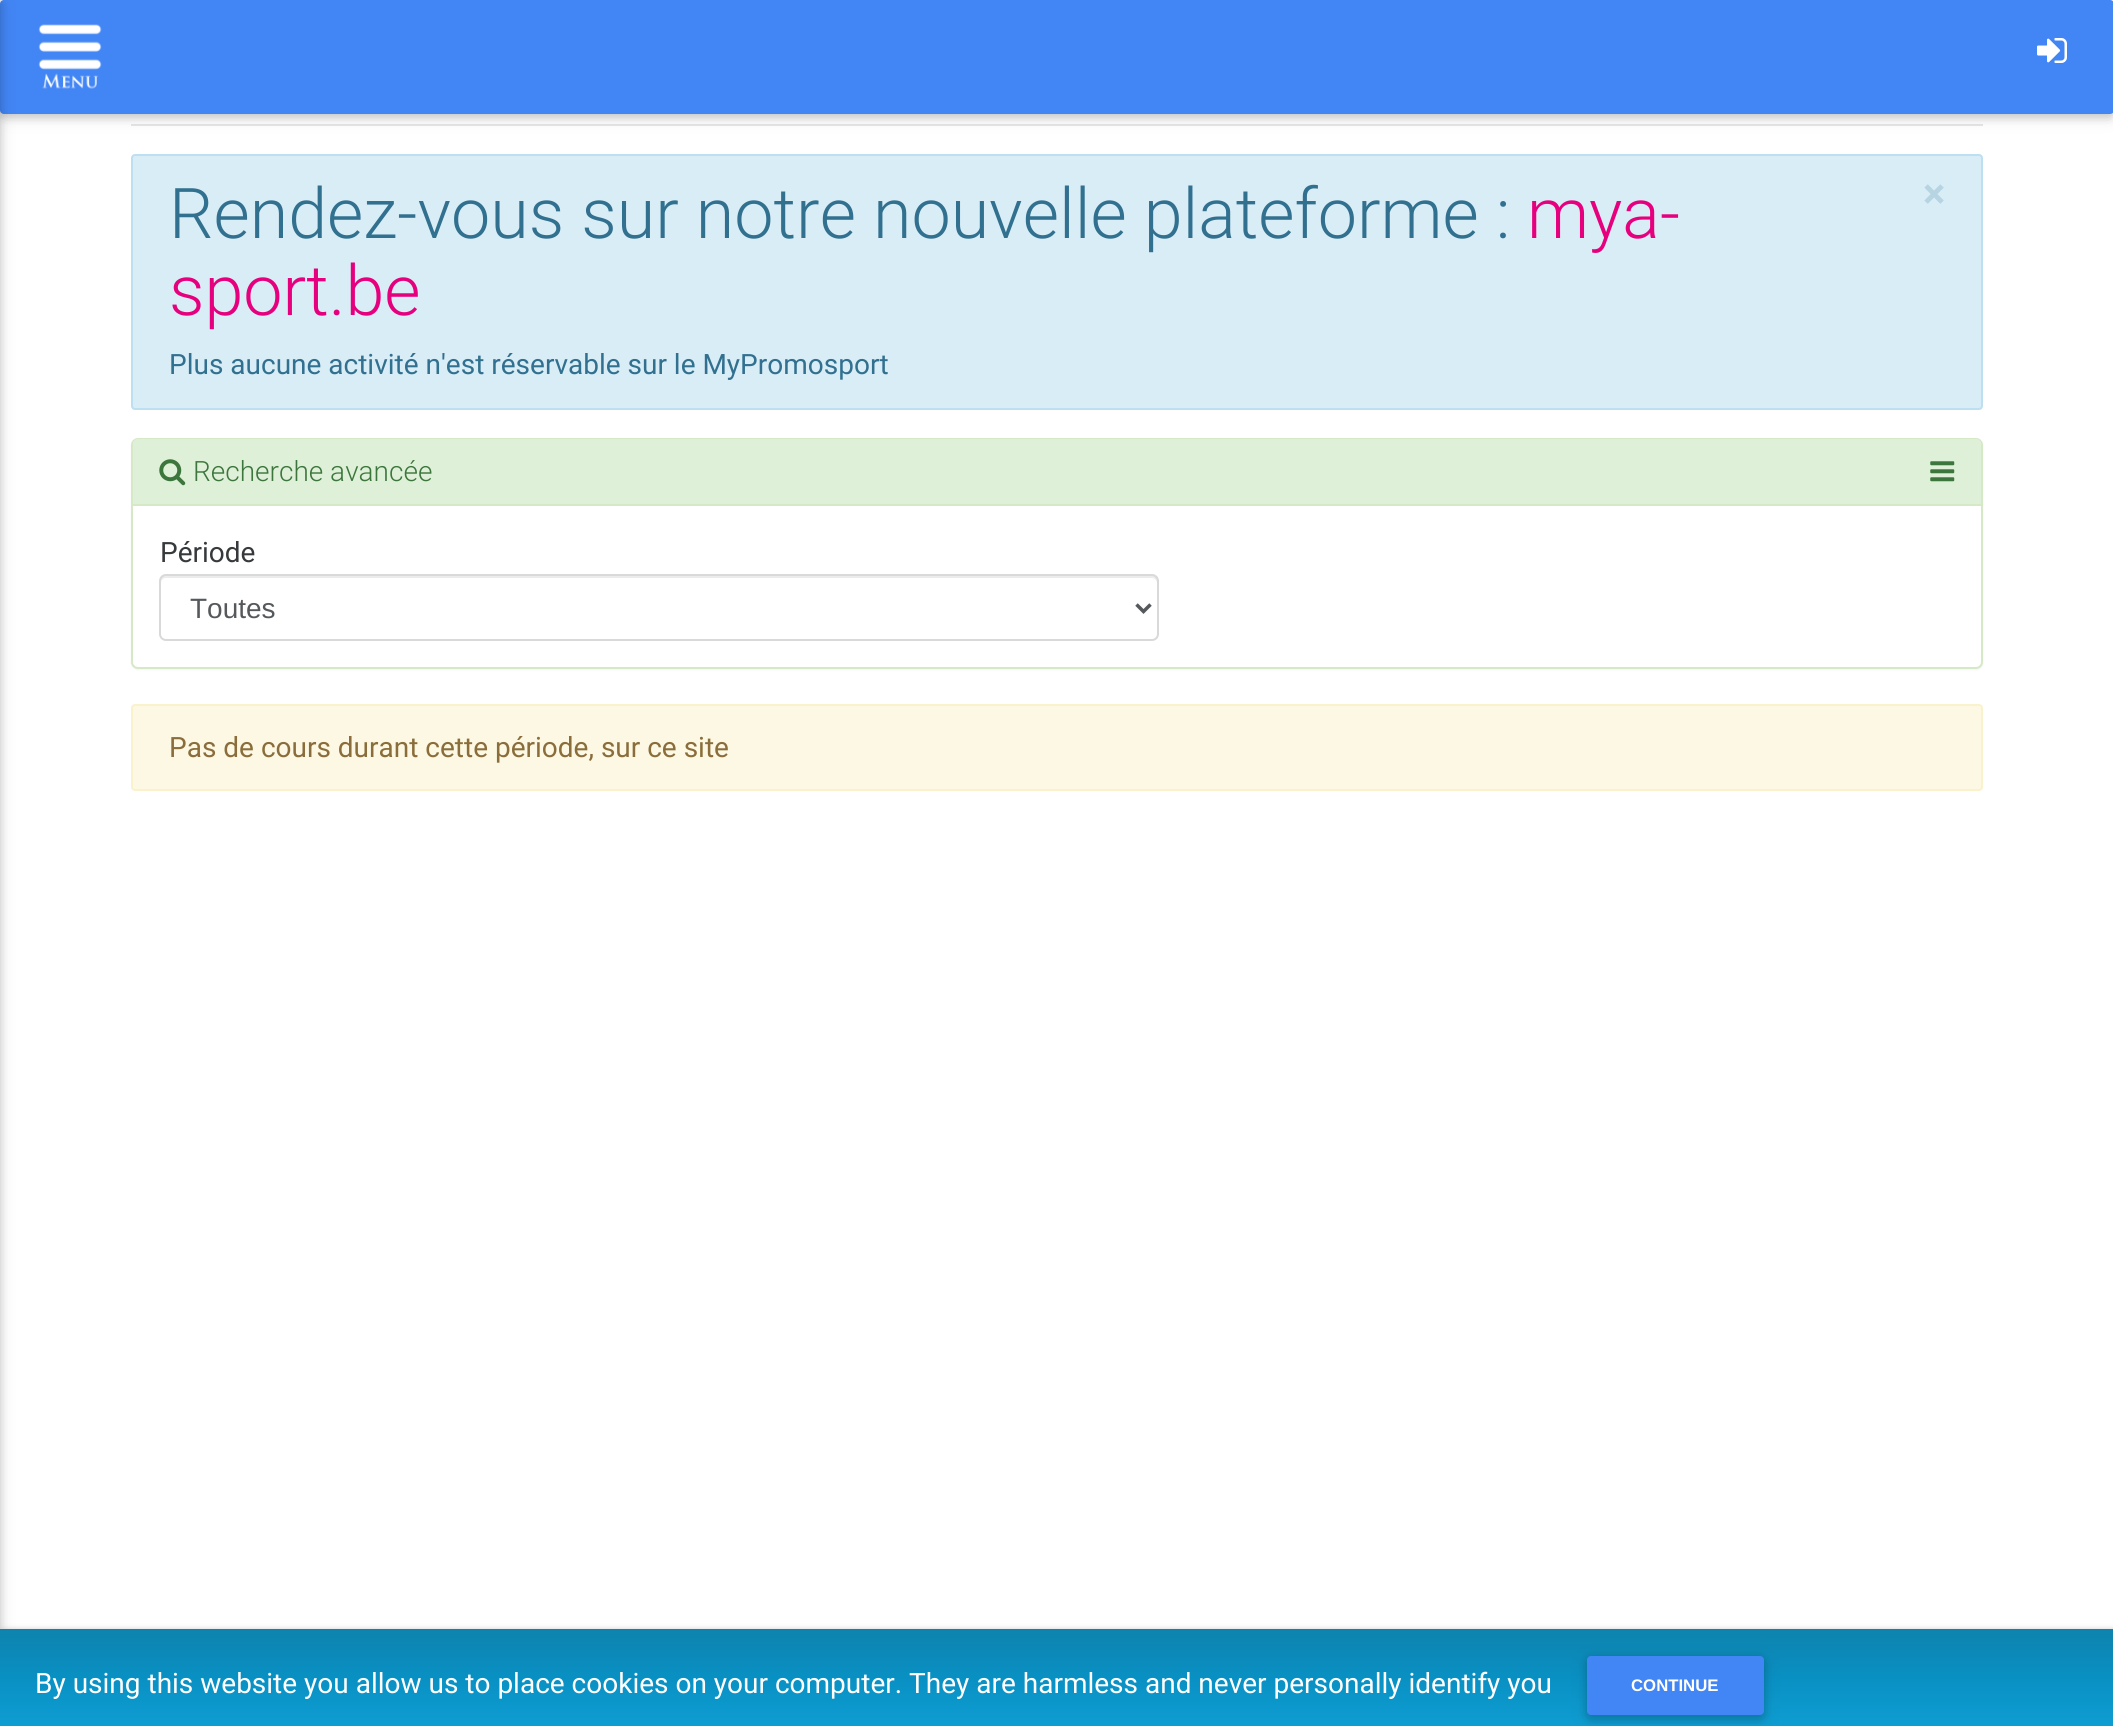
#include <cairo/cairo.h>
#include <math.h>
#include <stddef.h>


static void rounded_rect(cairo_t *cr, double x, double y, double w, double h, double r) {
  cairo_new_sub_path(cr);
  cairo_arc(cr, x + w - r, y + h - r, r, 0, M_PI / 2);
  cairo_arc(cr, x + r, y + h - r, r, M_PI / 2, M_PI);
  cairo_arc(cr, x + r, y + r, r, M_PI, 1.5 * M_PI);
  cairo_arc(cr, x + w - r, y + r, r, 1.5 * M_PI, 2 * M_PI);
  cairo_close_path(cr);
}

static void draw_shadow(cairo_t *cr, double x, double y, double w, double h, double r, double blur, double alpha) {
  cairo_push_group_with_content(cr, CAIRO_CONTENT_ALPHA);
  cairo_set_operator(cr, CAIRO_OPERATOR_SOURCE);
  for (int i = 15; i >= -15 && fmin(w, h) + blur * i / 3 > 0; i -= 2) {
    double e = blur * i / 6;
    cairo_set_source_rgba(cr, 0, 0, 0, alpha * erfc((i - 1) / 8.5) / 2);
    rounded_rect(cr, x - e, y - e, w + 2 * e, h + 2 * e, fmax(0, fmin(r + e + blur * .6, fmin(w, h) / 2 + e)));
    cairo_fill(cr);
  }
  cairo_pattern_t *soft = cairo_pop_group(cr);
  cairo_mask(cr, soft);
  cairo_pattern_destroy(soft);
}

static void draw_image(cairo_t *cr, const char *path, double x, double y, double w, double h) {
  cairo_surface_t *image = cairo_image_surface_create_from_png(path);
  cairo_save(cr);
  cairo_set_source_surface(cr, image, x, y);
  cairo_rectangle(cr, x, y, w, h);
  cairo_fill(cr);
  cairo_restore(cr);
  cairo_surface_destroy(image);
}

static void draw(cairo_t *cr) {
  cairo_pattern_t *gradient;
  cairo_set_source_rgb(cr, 1, 1, 1);
  cairo_paint(cr);
  cairo_set_source_rgb(cr, 230 / 255.0, 230 / 255.0, 230 / 255.0);
  cairo_rectangle(cr, 131, 124, 1852, 2);
  cairo_fill(cr);
  cairo_set_source_rgb(cr, 0, 0, 0);
  draw_shadow(cr, 0, 4, 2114, 113, 4, 9, 0.12);
  draw_shadow(cr, 0, 4, 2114, 113, 4, 4.5, 0.16);
  cairo_set_source_rgb(cr, 66 / 255.0, 133 / 255.0, 244 / 255.0);
  rounded_rect(cr, 0, 0, 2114, 114, 4);
  cairo_fill(cr);
  draw_image(cr, "images/1.png", 38, 24, 64, 65);
  draw_image(cr, "images/2.png", 2037, 38, 30, 25);
  cairo_set_source_rgb(cr, 0, 0, 0);
  draw_shadow(cr, -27, 4, 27, 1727, 0, 9, 0.12);
  draw_shadow(cr, -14, 4, 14, 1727, 0, 4.5, 0.16);
  cairo_set_source_rgb(cr, 217 / 255.0, 237 / 255.0, 247 / 255.0);
  rounded_rect(cr, 132, 155, 1850, 254, 3);
  cairo_fill_preserve(cr);
  cairo_set_source_rgb(cr, 188 / 255.0, 223 / 255.0, 241 / 255.0);
  cairo_stroke(cr);
  cairo_set_source_rgb(cr, 0, 0, 0);
  draw_shadow(cr, 131, 439, 1852, 231, 7, 1, 0.05);
  cairo_set_source_rgb(cr, 1, 1, 1);
  rounded_rect(cr, 132, 439, 1850, 229, 6);
  cairo_fill_preserve(cr);
  cairo_set_source_rgb(cr, 214 / 255.0, 233 / 255.0, 198 / 255.0);
  cairo_stroke(cr);
  cairo_set_source_rgb(cr, 223 / 255.0, 240 / 255.0, 216 / 255.0);
  cairo_new_path(cr);
  cairo_move_to(cr, 138, 439);
  cairo_line_to(cr, 1976, 439);
  cairo_curve_to(cr, 1979, 439, 1981, 441, 1981, 444);
  cairo_line_to(cr, 1981, 504);
  cairo_line_to(cr, 133, 504);
  cairo_line_to(cr, 133, 444);
  cairo_curve_to(cr, 133, 441, 135, 439, 138, 439);
  cairo_close_path(cr);
  cairo_fill(cr);
  draw_image(cr, "images/3.png", 159, 459, 27, 27);
  draw_image(cr, "images/4.png", 1930, 461, 25, 21);
  cairo_set_source_rgb(cr, 214 / 255.0, 233 / 255.0, 198 / 255.0);
  cairo_rectangle(cr, 133, 504, 1848, 2);
  cairo_fill(cr);
  cairo_set_source_rgb(cr, 236 / 255.0, 236 / 255.0, 236 / 255.0);
  cairo_new_path(cr);
  cairo_move_to(cr, 166, 578);
  cairo_line_to(cr, 1152, 578);
  cairo_curve_to(cr, 1154, 578, 1157, 580, 1157, 583);
  cairo_line_to(cr, 1157, 581);
  cairo_curve_to(cr, 1157, 578, 1155, 576, 1152, 576);
  cairo_line_to(cr, 166, 576);
  cairo_curve_to(cr, 163, 576, 161, 578, 161, 581);
  cairo_line_to(cr, 161, 583);
  cairo_curve_to(cr, 161, 580, 163, 578, 166, 578);
  cairo_close_path(cr);
  cairo_fill(cr);
  rounded_rect(cr, 160, 575, 998, 65, 6);
  cairo_set_source_rgba(cr, 0, 0, 0, 0.15);
  cairo_stroke(cr);
  cairo_new_path(cr);
  cairo_move_to(cr, 1136.5, 604.5);
  cairo_line_to(cr, 1143.5, 611.5);
  cairo_line_to(cr, 1150.5, 604.5);
  cairo_set_source_rgb(cr, 85 / 255.0, 89 / 255.0, 92 / 255.0);
  cairo_set_line_width(cr, 3.5);
  cairo_stroke(cr);
  cairo_set_source_rgb(cr, 252 / 255.0, 248 / 255.0, 227 / 255.0);
  rounded_rect(cr, 132, 705, 1850, 85, 3);
  cairo_fill_preserve(cr);
  cairo_set_source_rgb(cr, 250 / 255.0, 242 / 255.0, 204 / 255.0);
  cairo_set_line_width(cr, 2);
  cairo_stroke(cr);
  cairo_set_source_rgb(cr, 204 / 255.0, 204 / 255.0, 204 / 255.0);
  draw_shadow(cr, 0, 1629, 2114, 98, 0, 2.5, 1);
  gradient = cairo_pattern_create_linear(1057, 1629, 1057, 1726);
  cairo_pattern_add_color_stop_rgba(gradient, 0, 14 / 255.0, 131 / 255.0, 174 / 255.0, 1);
  cairo_pattern_add_color_stop_rgba(gradient, 0.5, 9 / 255.0, 144 / 255.0, 195 / 255.0, 1);
  cairo_pattern_add_color_stop_rgba(gradient, 1, 14 / 255.0, 157 / 255.0, 210 / 255.0, 1);
  cairo_set_source(cr, gradient);
  cairo_pattern_destroy(gradient);
  cairo_rectangle(cr, 0, 1629, 2113, 97);
  cairo_fill(cr);
  cairo_set_source_rgb(cr, 0, 0, 0);
  draw_shadow(cr, 1587, 1659, 177, 60, 4, 9, 0.12);
  draw_shadow(cr, 1587, 1659, 177, 60, 4, 4.5, 0.16);
  cairo_set_source_rgb(cr, 66 / 255.0, 133 / 255.0, 244 / 255.0);
  rounded_rect(cr, 1587, 1656, 177, 59, 4);
  cairo_fill(cr);
  cairo_select_font_face(cr, "Roboto Light", CAIRO_FONT_SLANT_NORMAL, CAIRO_FONT_WEIGHT_NORMAL);
  cairo_set_font_size(cr, 70);
  cairo_set_source_rgb(cr, 49 / 255.0, 112 / 255.0, 143 / 255.0);
  cairo_move_to(cr, 169, 238);
  cairo_show_text(cr, "Rendez-vous sur notre nouvelle plateforme :");
  cairo_set_source_rgb(cr, 230 / 255.0, 0, 126 / 255.0);
  cairo_move_to(cr, 1527, 238);
  cairo_show_text(cr, "mya-");
  cairo_move_to(cr, 169, 315);
  cairo_show_text(cr, "sport.be");
  cairo_select_font_face(cr, "Roboto", CAIRO_FONT_SLANT_NORMAL, CAIRO_FONT_WEIGHT_BOLD);
  cairo_set_font_size(cr, 42);
  cairo_set_source_rgb(cr, 183 / 255.0, 212 / 255.0, 226 / 255.0);
  cairo_move_to(cr, 1923, 208);
  cairo_show_text(cr, "×");
  cairo_select_font_face(cr, "Roboto", CAIRO_FONT_SLANT_NORMAL, CAIRO_FONT_WEIGHT_NORMAL);
  cairo_set_font_size(cr, 28);
  cairo_set_source_rgb(cr, 49 / 255.0, 112 / 255.0, 143 / 255.0);
  cairo_move_to(cr, 169, 374);
  cairo_show_text(cr, "Plus aucune activité n'est réservable sur le MyPromosport");
  cairo_select_font_face(cr, "Roboto Light", CAIRO_FONT_SLANT_NORMAL, CAIRO_FONT_WEIGHT_NORMAL);
  cairo_set_source_rgb(cr, 60 / 255.0, 118 / 255.0, 61 / 255.0);
  cairo_move_to(cr, 193, 481);
  cairo_show_text(cr, "Recherche avancée");
  cairo_select_font_face(cr, "Roboto", CAIRO_FONT_SLANT_NORMAL, CAIRO_FONT_WEIGHT_NORMAL);
  cairo_set_source_rgb(cr, 55 / 255.0, 58 / 255.0, 60 / 255.0);
  cairo_move_to(cr, 160, 562);
  cairo_show_text(cr, "Période");
  cairo_select_font_face(cr, "Liberation Sans", CAIRO_FONT_SLANT_NORMAL, CAIRO_FONT_WEIGHT_NORMAL);
  cairo_set_source_rgb(cr, 85 / 255.0, 89 / 255.0, 92 / 255.0);
  cairo_move_to(cr, 190, 618);
  cairo_show_text(cr, "Toutes");
  cairo_select_font_face(cr, "Roboto", CAIRO_FONT_SLANT_NORMAL, CAIRO_FONT_WEIGHT_NORMAL);
  cairo_set_source_rgb(cr, 138 / 255.0, 109 / 255.0, 59 / 255.0);
  cairo_move_to(cr, 169, 757);
  cairo_show_text(cr, "Pas de cours durant cette période, sur ce site");
  cairo_set_source_rgb(cr, 1, 1, 1);
  cairo_move_to(cr, 35, 1693);
  cairo_show_text(cr, "By using this website you allow us to place cookies on your computer. They are harmless and never personally identify you");
  cairo_select_font_face(cr, "Liberation Sans", CAIRO_FONT_SLANT_NORMAL, CAIRO_FONT_WEIGHT_BOLD);
  cairo_set_font_size(cr, 16.75);
  cairo_move_to(cr, 1631, 1691);
  cairo_show_text(cr, "CONTINUE");
}

int main(void) {
  cairo_surface_t *surface = cairo_image_surface_create(CAIRO_FORMAT_RGB24, 2113, 1726);
  cairo_t *cr = cairo_create(surface);
  cairo_font_options_t *options = cairo_font_options_create();
  cairo_font_options_set_hint_metrics(options, CAIRO_HINT_METRICS_OFF);
  cairo_font_options_set_hint_style(options, CAIRO_HINT_STYLE_NONE);
  cairo_set_font_options(cr, options);
  cairo_set_miter_limit(cr, 4);
  draw(cr);
  cairo_surface_write_to_png(surface, "out.png");
  cairo_font_options_destroy(options);
  cairo_destroy(cr);
  cairo_surface_destroy(surface);
  return 0;
}
